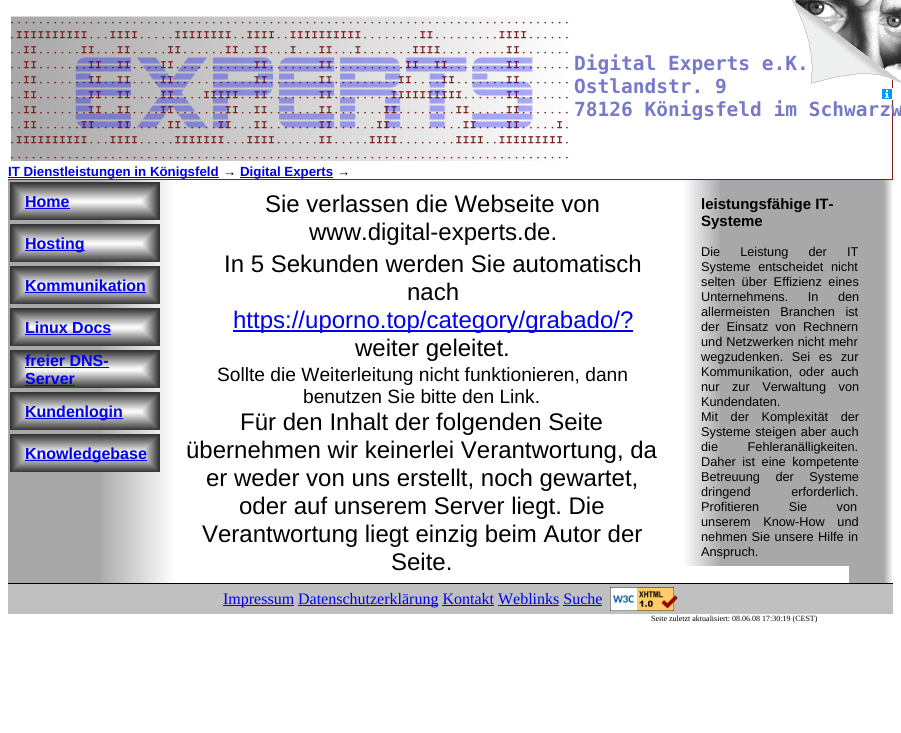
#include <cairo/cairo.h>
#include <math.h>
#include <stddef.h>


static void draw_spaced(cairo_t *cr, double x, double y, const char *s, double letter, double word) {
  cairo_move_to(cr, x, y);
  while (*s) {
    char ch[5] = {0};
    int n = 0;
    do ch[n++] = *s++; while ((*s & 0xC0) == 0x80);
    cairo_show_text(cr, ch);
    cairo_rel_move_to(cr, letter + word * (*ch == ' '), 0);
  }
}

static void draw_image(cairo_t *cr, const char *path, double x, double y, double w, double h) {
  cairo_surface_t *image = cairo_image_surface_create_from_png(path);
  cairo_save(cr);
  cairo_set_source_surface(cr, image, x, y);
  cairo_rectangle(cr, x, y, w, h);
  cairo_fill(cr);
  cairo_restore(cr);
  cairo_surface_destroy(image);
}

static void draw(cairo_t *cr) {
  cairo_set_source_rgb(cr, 1, 1, 1);
  cairo_paint(cr);
  cairo_set_source_rgb(cr, 125 / 255.0, 31 / 255.0, 27 / 255.0);
  cairo_rectangle(cr, 892, 80, 1, 100);
  cairo_fill(cr);
  draw_image(cr, "images/2.png", 882, 88, 11, 12);
  cairo_rectangle(cr, 8, 179, 885, 1);
  cairo_fill(cr);
  draw_image(cr, "images/3.png", 11, 16, 557, 145);
  cairo_set_source_rgb(cr, 0, 0, 238 / 255.0);
  cairo_rectangle(cr, 8, 177, 211, 1);
  cairo_fill(cr);
  cairo_rectangle(cr, 240, 177, 93, 1);
  cairo_fill(cr);
  cairo_set_source_rgb(cr, 168 / 255.0, 168 / 255.0, 168 / 255.0);
  cairo_rectangle(cr, 849, 180, 35, 403);
  cairo_fill(cr);
  draw_image(cr, "images/4.png", 884, 180, 9, 403);
  cairo_rectangle(cr, 8, 180, 93, 403);
  cairo_fill(cr);
  draw_image(cr, "images/5.png", 101, 180, 75, 403);
  draw_image(cr, "images/6.png", 10, 182, 150, 38);
  cairo_set_source_rgb(cr, 0, 0, 238 / 255.0);
  cairo_rectangle(cr, 25, 208, 45, 1);
  cairo_fill(cr);
  draw_image(cr, "images/6.png", 10, 224, 150, 38);
  cairo_rectangle(cr, 25, 250, 60, 1);
  cairo_fill(cr);
  draw_image(cr, "images/6.png", 10, 266, 150, 38);
  cairo_rectangle(cr, 25, 292, 121, 1);
  cairo_fill(cr);
  draw_image(cr, "images/6.png", 10, 308, 150, 38);
  cairo_rectangle(cr, 25, 334, 86, 1);
  cairo_fill(cr);
  draw_image(cr, "images/6.png", 10, 350, 150, 38);
  cairo_rectangle(cr, 25, 367, 84, 1);
  cairo_fill(cr);
  cairo_rectangle(cr, 25, 385, 50, 1);
  cairo_fill(cr);
  draw_image(cr, "images/6.png", 10, 392, 150, 38);
  cairo_rectangle(cr, 25, 418, 98, 1);
  cairo_fill(cr);
  draw_image(cr, "images/6.png", 10, 434, 150, 38);
  cairo_rectangle(cr, 25, 460, 122, 1);
  cairo_fill(cr);
  cairo_rectangle(cr, 233, 330, 400, 2);
  cairo_fill(cr);
  cairo_set_source_rgb(cr, 168 / 255.0, 168 / 255.0, 168 / 255.0);
  cairo_rectangle(cr, 720, 180, 129, 386);
  cairo_fill(cr);
  draw_image(cr, "images/7.png", 682, 180, 38, 386);
  cairo_set_source_rgb(cr, 192 / 255.0, 192 / 255.0, 192 / 255.0);
  cairo_rectangle(cr, 8, 584, 885, 30);
  cairo_fill(cr);
  cairo_set_source_rgb(cr, 0, 0, 0);
  cairo_rectangle(cr, 8, 583, 885, 1);
  cairo_fill(cr);
  cairo_set_source_rgb(cr, 0, 0, 238 / 255.0);
  cairo_rectangle(cr, 223, 605, 71, 1);
  cairo_fill(cr);
  cairo_rectangle(cr, 298, 605, 140, 1);
  cairo_fill(cr);
  draw_image(cr, "images/8.png", 610, 587, 68, 24);
  cairo_rectangle(cr, 442, 605, 52, 1);
  cairo_fill(cr);
  cairo_rectangle(cr, 498, 605, 61, 1);
  cairo_fill(cr);
  cairo_rectangle(cr, 563, 605, 39, 1);
  cairo_fill(cr);
  cairo_select_font_face(cr, "DejaVu Sans Mono", CAIRO_FONT_SLANT_NORMAL, CAIRO_FONT_WEIGHT_BOLD);
  cairo_set_font_size(cr, 19.5);
  cairo_set_source_rgb(cr, 121 / 255.0, 121 / 255.0, 202 / 255.0);
  cairo_move_to(cr, 574, 70);
  cairo_show_text(cr, "Digital Experts e.K.");
  draw_image(cr, "images/1.png", 792, 0, 109, 84);
  cairo_move_to(cr, 574, 93);
  cairo_show_text(cr, "Ostlandstr. 9");
  cairo_move_to(cr, 574, 116);
  cairo_show_text(cr, "78126 Königsfeld im Schwarzw");
  cairo_select_font_face(cr, "Liberation Sans", CAIRO_FONT_SLANT_NORMAL, CAIRO_FONT_WEIGHT_BOLD);
  cairo_set_font_size(cr, 13.3);
  cairo_set_source_rgb(cr, 0, 0, 238 / 255.0);
  cairo_move_to(cr, 8, 176);
  cairo_show_text(cr, "IT Dienstleistungen in Königsfeld");
  cairo_set_source_rgb(cr, 0, 0, 0);
  cairo_move_to(cr, 223, 176);
  cairo_show_text(cr, "→");
  cairo_set_source_rgb(cr, 0, 0, 238 / 255.0);
  cairo_move_to(cr, 240, 176);
  cairo_show_text(cr, "Digital Experts");
  cairo_set_source_rgb(cr, 0, 0, 0);
  cairo_move_to(cr, 337, 176);
  cairo_show_text(cr, "→");
  cairo_set_font_size(cr, 16);
  cairo_set_source_rgb(cr, 0, 0, 238 / 255.0);
  cairo_move_to(cr, 25, 207);
  cairo_show_text(cr, "Home");
  cairo_move_to(cr, 25, 249);
  cairo_show_text(cr, "Hosting");
  cairo_move_to(cr, 25, 291);
  cairo_show_text(cr, "Kommunikation");
  cairo_move_to(cr, 25, 333);
  cairo_show_text(cr, "Linux Docs");
  cairo_move_to(cr, 25, 366);
  cairo_show_text(cr, "freier DNS-");
  cairo_move_to(cr, 25, 384);
  cairo_show_text(cr, "Server");
  cairo_move_to(cr, 25, 417);
  cairo_show_text(cr, "Kundenlogin");
  cairo_move_to(cr, 25, 459);
  cairo_show_text(cr, "Knowledgebase");
  cairo_select_font_face(cr, "Liberation Sans", CAIRO_FONT_SLANT_NORMAL, CAIRO_FONT_WEIGHT_NORMAL);
  cairo_set_font_size(cr, 24);
  cairo_set_source_rgb(cr, 0, 0, 0);
  cairo_move_to(cr, 265, 212);
  cairo_show_text(cr, "Sie verlassen die Webseite von");
  cairo_move_to(cr, 309, 240);
  cairo_show_text(cr, "www.digital-experts.de.");
  cairo_move_to(cr, 224, 272);
  cairo_show_text(cr, "In 5 Sekunden werden Sie automatisch");
  cairo_move_to(cr, 407, 300);
  cairo_show_text(cr, "nach");
  cairo_set_source_rgb(cr, 0, 0, 238 / 255.0);
  cairo_move_to(cr, 233, 328);
  cairo_show_text(cr, "https://uporno.top/category/grabado/?");
  cairo_set_source_rgb(cr, 0, 0, 0);
  cairo_move_to(cr, 355, 356);
  cairo_show_text(cr, "weiter geleitet.");
  cairo_set_font_size(cr, 19.2);
  cairo_move_to(cr, 217, 381);
  cairo_show_text(cr, "Sollte die Weiterleitung nicht funktionieren, dann");
  cairo_move_to(cr, 303, 403);
  cairo_show_text(cr, "benutzen Sie bitte den Link.");
  cairo_set_font_size(cr, 24);
  cairo_move_to(cr, 240, 430);
  cairo_show_text(cr, "Für den Inhalt der folgenden Seite");
  cairo_move_to(cr, 186, 458);
  cairo_show_text(cr, "übernehmen wir keinerlei Verantwortung, da");
  cairo_move_to(cr, 206, 486);
  cairo_show_text(cr, "er weder von uns erstellt, noch gewartet,");
  cairo_move_to(cr, 239, 514);
  cairo_show_text(cr, "oder auf unserem Server liegt. Die");
  cairo_move_to(cr, 202, 542);
  cairo_show_text(cr, "Verantwortung liegt einzig beim Autor der");
  cairo_move_to(cr, 391, 570);
  cairo_show_text(cr, "Seite.");
  cairo_select_font_face(cr, "Liberation Sans", CAIRO_FONT_SLANT_NORMAL, CAIRO_FONT_WEIGHT_BOLD);
  cairo_set_font_size(cr, 15);
  cairo_move_to(cr, 701, 209);
  cairo_show_text(cr, "leistungsfähige IT-");
  cairo_move_to(cr, 701, 226);
  cairo_show_text(cr, "Systeme");
  cairo_select_font_face(cr, "Liberation Sans", CAIRO_FONT_SLANT_NORMAL, CAIRO_FONT_WEIGHT_NORMAL);
  cairo_set_font_size(cr, 12.75);
  draw_spaced(cr, 701, 256, "Die Leistung der IT", 0, 16.5);
  draw_spaced(cr, 701, 271, "Systeme entscheidet nicht", 0, 4);
  draw_spaced(cr, 701, 286, "selten über Effizienz eines", 0, 3);
  draw_spaced(cr, 701, 301, "Unternehmens. In den", 0, 16);
  draw_spaced(cr, 701, 316, "allermeisten Branchen ist", 0, 7);
  draw_spaced(cr, 701, 331, "der Einsatz von Rechnern", 0, 3.5);
  draw_spaced(cr, 701, 346, "und Netzwerken nicht mehr", 0, 0.5);
  draw_spaced(cr, 701, 361, "wegzudenken. Sei es zur", 0, 5);
  draw_spaced(cr, 701, 376, "Kommunikation, oder auch", 0, 3);
  draw_spaced(cr, 701, 391, "nur zur Verwaltung von", 0, 9);
  cairo_move_to(cr, 701, 406);
  cairo_show_text(cr, "Kundendaten.");
  draw_spaced(cr, 701, 421, "Mit der Komplexität der", 0, 9);
  draw_spaced(cr, 701, 436, "Systeme steigen aber auch", 0, 1);
  draw_spaced(cr, 701, 451, "die Fehleranälligkeiten.", 0, 26);
  draw_spaced(cr, 701, 466, "Daher ist eine kompetente", 0, 3);
  draw_spaced(cr, 701, 481, "Betreuung der Systeme", 0, 12);
  draw_spaced(cr, 701, 496, "dringend erforderlich.", 0, 37);
  draw_spaced(cr, 701, 511, "Profitieren Sie von", 0, 26);
  draw_spaced(cr, 701, 526, "unserem Know-How und", 0, 9);
  draw_spaced(cr, 701, 541, "nehmen Sie unsere Hilfe in", 0, 1);
  cairo_move_to(cr, 701, 556);
  cairo_show_text(cr, "Anspruch.");
  cairo_select_font_face(cr, "Liberation Serif", CAIRO_FONT_SLANT_NORMAL, CAIRO_FONT_WEIGHT_NORMAL);
  cairo_set_font_size(cr, 16);
  cairo_set_source_rgb(cr, 0, 0, 238 / 255.0);
  cairo_move_to(cr, 223, 604);
  cairo_show_text(cr, "Impressum");
  cairo_move_to(cr, 298, 604);
  cairo_show_text(cr, "Datenschutzerklärung Kontakt Weblinks Suche");
  cairo_set_font_size(cr, 8);
  cairo_set_source_rgb(cr, 0, 0, 0);
  cairo_move_to(cr, 651, 621);
  cairo_show_text(cr, "Seite zuletzt aktualisiert: 08.06.08 17:30:19 (CEST)");
}

int main(void) {
  cairo_surface_t *surface = cairo_image_surface_create(CAIRO_FORMAT_RGB24, 901, 733);
  cairo_t *cr = cairo_create(surface);
  cairo_font_options_t *options = cairo_font_options_create();
  cairo_font_options_set_hint_metrics(options, CAIRO_HINT_METRICS_OFF);
  cairo_font_options_set_hint_style(options, CAIRO_HINT_STYLE_NONE);
  cairo_set_font_options(cr, options);
  cairo_set_miter_limit(cr, 4);
  draw(cr);
  cairo_surface_write_to_png(surface, "out.png");
  cairo_font_options_destroy(options);
  cairo_destroy(cr);
  cairo_surface_destroy(surface);
  return 0;
}
